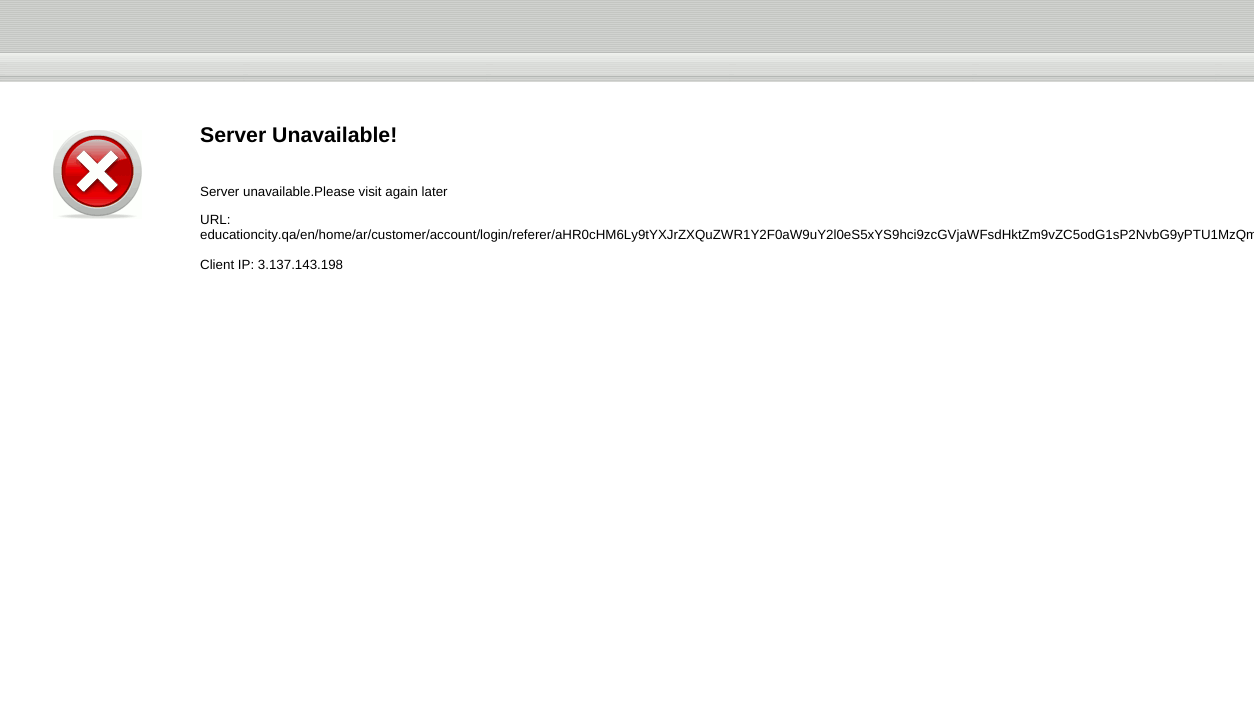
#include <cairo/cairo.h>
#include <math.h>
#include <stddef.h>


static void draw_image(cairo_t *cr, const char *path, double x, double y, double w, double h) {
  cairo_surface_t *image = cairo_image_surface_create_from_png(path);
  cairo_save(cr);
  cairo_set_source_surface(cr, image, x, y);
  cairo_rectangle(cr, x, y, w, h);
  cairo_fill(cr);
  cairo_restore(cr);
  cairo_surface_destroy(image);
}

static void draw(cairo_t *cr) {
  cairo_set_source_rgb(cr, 1, 1, 1);
  cairo_paint(cr);
  draw_image(cr, "images/1.png", 0, 0, 1254, 82);
  draw_image(cr, "images/2.png", 53, 130, 89, 89);
  cairo_select_font_face(cr, "Liberation Sans", CAIRO_FONT_SLANT_NORMAL, CAIRO_FONT_WEIGHT_BOLD);
  cairo_set_font_size(cr, 21.25);
  cairo_set_source_rgb(cr, 0, 0, 0);
  cairo_move_to(cr, 200, 142);
  cairo_show_text(cr, "Server Unavailable!");
  cairo_select_font_face(cr, "Liberation Sans", CAIRO_FONT_SLANT_NORMAL, CAIRO_FONT_WEIGHT_NORMAL);
  cairo_set_font_size(cr, 13.33);
  cairo_move_to(cr, 200, 196);
  cairo_show_text(cr, "Server unavailable.Please visit again later");
  cairo_move_to(cr, 200, 224);
  cairo_show_text(cr, "URL:");
  cairo_move_to(cr, 200, 239);
  cairo_show_text(cr, "educationcity.qa/en/home/ar/customer/account/login/referer/aHR0cHM6Ly9tYXJrZXQuZWR1Y2F0aW9uY2l0eS5xYS9hci9zcGVjaWFsdHktZm9vZC5odG1sP2NvbG9yPTU1MzQm");
  cairo_move_to(cr, 200, 269);
  cairo_show_text(cr, "Client IP: 3.137.143.198");
}

int main(void) {
  cairo_surface_t *surface = cairo_image_surface_create(CAIRO_FORMAT_RGB24, 1254, 708);
  cairo_t *cr = cairo_create(surface);
  cairo_font_options_t *options = cairo_font_options_create();
  cairo_font_options_set_hint_metrics(options, CAIRO_HINT_METRICS_OFF);
  cairo_font_options_set_hint_style(options, CAIRO_HINT_STYLE_NONE);
  cairo_set_font_options(cr, options);
  cairo_set_miter_limit(cr, 4);
  draw(cr);
  cairo_surface_write_to_png(surface, "out.png");
  cairo_font_options_destroy(options);
  cairo_destroy(cr);
  cairo_surface_destroy(surface);
  return 0;
}
